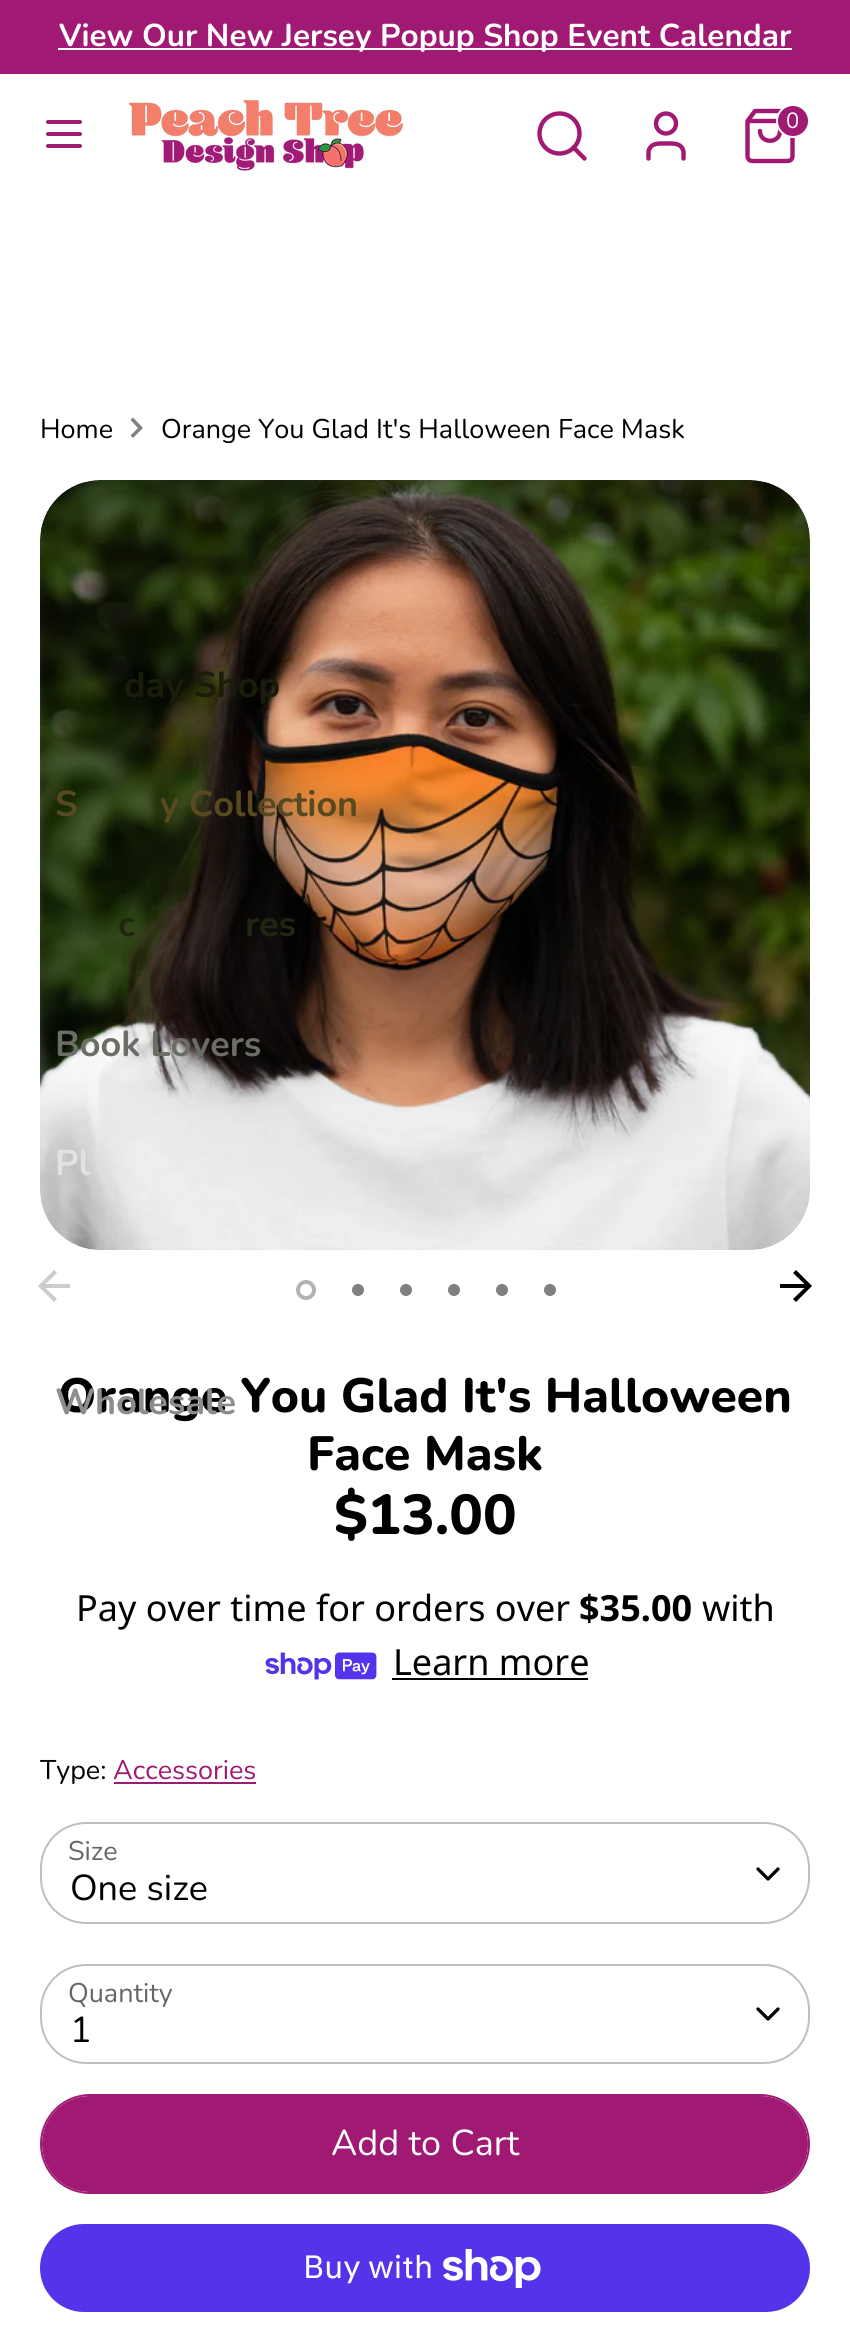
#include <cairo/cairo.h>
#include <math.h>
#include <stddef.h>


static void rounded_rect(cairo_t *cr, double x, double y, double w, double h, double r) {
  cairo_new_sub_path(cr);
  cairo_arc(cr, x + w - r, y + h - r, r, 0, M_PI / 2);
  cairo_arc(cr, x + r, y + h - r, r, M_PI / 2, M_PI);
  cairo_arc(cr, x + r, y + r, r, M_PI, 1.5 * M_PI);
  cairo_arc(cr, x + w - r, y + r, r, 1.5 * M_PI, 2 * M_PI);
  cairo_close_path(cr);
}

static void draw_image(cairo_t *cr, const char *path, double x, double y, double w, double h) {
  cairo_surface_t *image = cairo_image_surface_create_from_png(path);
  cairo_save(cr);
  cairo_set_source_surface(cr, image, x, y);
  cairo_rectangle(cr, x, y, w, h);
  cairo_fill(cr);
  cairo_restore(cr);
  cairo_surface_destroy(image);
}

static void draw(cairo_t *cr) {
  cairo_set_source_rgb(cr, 1, 1, 1);
  cairo_paint(cr);
  cairo_set_source_rgb(cr, 160 / 255.0, 26 / 255.0, 116 / 255.0);
  cairo_rectangle(cr, 0, 0, 850, 74);
  cairo_fill(cr);
  cairo_set_source_rgb(cr, 1, 1, 1);
  cairo_rectangle(cr, 58, 48, 734, 2);
  cairo_fill(cr);
  cairo_new_path(cr);
  cairo_move_to(cr, 48, 134);
  cairo_line_to(cr, 80, 134);
  cairo_move_to(cr, 48, 122);
  cairo_line_to(cr, 80, 122);
  cairo_move_to(cr, 48, 146);
  cairo_line_to(cr, 80, 146);
  cairo_set_source_rgb(cr, 160 / 255.0, 26 / 255.0, 116 / 255.0);
  cairo_set_line_width(cr, 4);
  cairo_set_line_cap(cr, CAIRO_LINE_CAP_ROUND);
  cairo_set_line_join(cr, CAIRO_LINE_JOIN_ROUND);
  cairo_stroke(cr);
  draw_image(cr, "images/1.png", 129, 100, 274, 71);
  cairo_arc(cr, 559.5, 133.5, 20, 0, 2 * M_PI);
  cairo_set_line_width(cr, 4.4);
  cairo_set_line_cap(cr, CAIRO_LINE_CAP_BUTT);
  cairo_set_line_join(cr, CAIRO_LINE_JOIN_MITER);
  cairo_stroke(cr);
  cairo_new_path(cr);
  cairo_move_to(cr, 584.5, 158.5);
  cairo_line_to(cr, 573.5, 147.5);
  cairo_set_line_cap(cr, CAIRO_LINE_CAP_ROUND);
  cairo_set_line_join(cr, CAIRO_LINE_JOIN_ROUND);
  cairo_stroke(cr);
  cairo_new_path(cr);
  cairo_move_to(cr, 683.5, 158.5);
  cairo_line_to(cr, 683.5, 151.5);
  cairo_curve_to(cr, 681.5, 142.5, 673, 143.5, 666, 143.5);
  cairo_curve_to(cr, 659, 143.5, 650.5, 142.5, 648.5, 151.5);
  cairo_line_to(cr, 648.5, 158.5);
  cairo_stroke(cr);
  cairo_arc(cr, 666, 123.5, 10, 0, 2 * M_PI);
  cairo_set_line_cap(cr, CAIRO_LINE_CAP_BUTT);
  cairo_set_line_join(cr, CAIRO_LINE_JOIN_MITER);
  cairo_stroke(cr);
  cairo_new_path(cr);
  cairo_move_to(cr, 755, 111);
  cairo_line_to(cr, 747.5, 121);
  cairo_line_to(cr, 747.5, 156);
  cairo_curve_to(cr, 747.5, 159, 749.5, 161, 752.5, 161);
  cairo_line_to(cr, 787.5, 161);
  cairo_curve_to(cr, 790.5, 161, 792.5, 159, 792.5, 156);
  cairo_line_to(cr, 792.5, 121);
  cairo_line_to(cr, 785, 111);
  cairo_close_path(cr);
  cairo_move_to(cr, 747.5, 121);
  cairo_line_to(cr, 792.5, 121);
  cairo_move_to(cr, 780, 131);
  cairo_curve_to(cr, 780, 144, 760, 144, 760, 131);
  cairo_set_line_cap(cr, CAIRO_LINE_CAP_ROUND);
  cairo_set_line_join(cr, CAIRO_LINE_JOIN_ROUND);
  cairo_stroke(cr);
  cairo_arc(cr, 793, 121, 16, 0, 2 * M_PI);
  cairo_fill_preserve(cr);
  cairo_set_source_rgb(cr, 1, 1, 1);
  cairo_set_line_width(cr, 2);
  cairo_set_line_cap(cr, CAIRO_LINE_CAP_BUTT);
  cairo_set_line_join(cr, CAIRO_LINE_JOIN_MITER);
  cairo_stroke(cr);
  cairo_set_source_rgb(cr, 128 / 255.0, 128 / 255.0, 128 / 255.0);
  cairo_new_path(cr);
  cairo_move_to(cr, 130.5, 435.5);
  cairo_line_to(cr, 138, 428);
  cairo_line_to(cr, 130.5, 420);
  cairo_line_to(cr, 133, 417.5);
  cairo_line_to(cr, 143, 428);
  cairo_line_to(cr, 133, 438);
  cairo_close_path(cr);
  cairo_fill(cr);
  draw_image(cr, "images/2.png", 40, 480, 770, 770);
  cairo_set_source_rgb(cr, 204 / 255.0, 204 / 255.0, 204 / 255.0);
  cairo_new_path(cr);
  cairo_move_to(cr, 70, 1284);
  cairo_line_to(cr, 45.5, 1284);
  cairo_line_to(cr, 57, 1273);
  cairo_line_to(cr, 54, 1270);
  cairo_line_to(cr, 38, 1286);
  cairo_line_to(cr, 54, 1302);
  cairo_line_to(cr, 57, 1299);
  cairo_line_to(cr, 45.5, 1288);
  cairo_line_to(cr, 70, 1288);
  cairo_close_path(cr);
  cairo_fill(cr);
  cairo_set_source_rgb(cr, 0, 0, 0);
  cairo_new_path(cr);
  cairo_move_to(cr, 796, 1270);
  cairo_line_to(cr, 793, 1273);
  cairo_line_to(cr, 804.5, 1284);
  cairo_line_to(cr, 780, 1284);
  cairo_line_to(cr, 780, 1288);
  cairo_line_to(cr, 804.5, 1288);
  cairo_line_to(cr, 793, 1299);
  cairo_line_to(cr, 796, 1302);
  cairo_line_to(cr, 812, 1286);
  cairo_close_path(cr);
  cairo_fill(cr);
  cairo_arc(cr, 306, 1290, 8, 0, 2 * M_PI);
  cairo_set_source_rgb(cr, 179 / 255.0, 179 / 255.0, 179 / 255.0);
  cairo_set_line_width(cr, 4);
  cairo_stroke(cr);
  cairo_set_source_rgb(cr, 128 / 255.0, 128 / 255.0, 128 / 255.0);
  cairo_arc(cr, 358, 1290, 6, 0, 2 * M_PI);
  cairo_fill(cr);
  cairo_arc(cr, 406, 1290, 6, 0, 2 * M_PI);
  cairo_fill(cr);
  cairo_arc(cr, 454, 1290, 6, 0, 2 * M_PI);
  cairo_fill(cr);
  cairo_arc(cr, 502, 1290, 6, 0, 2 * M_PI);
  cairo_fill(cr);
  cairo_arc(cr, 550, 1290, 6, 0, 2 * M_PI);
  cairo_fill(cr);
  draw_image(cr, "images/3.png", 265, 1652, 112, 28);
  cairo_set_source_rgb(cr, 0, 0, 0);
  cairo_rectangle(cr, 392, 1678, 196, 2);
  cairo_fill(cr);
  cairo_set_source_rgb(cr, 160 / 255.0, 26 / 255.0, 116 / 255.0);
  cairo_rectangle(cr, 114, 1782, 142, 2);
  cairo_fill(cr);
  rounded_rect(cr, 41, 1823, 768, 100, 45);
  cairo_set_source_rgb(cr, 191 / 255.0, 191 / 255.0, 191 / 255.0);
  cairo_set_line_width(cr, 2);
  cairo_stroke(cr);
  cairo_new_path(cr);
  cairo_move_to(cr, 758, 1869);
  cairo_line_to(cr, 768, 1879);
  cairo_line_to(cr, 778, 1869);
  cairo_set_source_rgb(cr, 0, 0, 0);
  cairo_set_line_width(cr, 3.3);
  cairo_set_line_cap(cr, CAIRO_LINE_CAP_ROUND);
  cairo_set_line_join(cr, CAIRO_LINE_JOIN_ROUND);
  cairo_stroke(cr);
  rounded_rect(cr, 41, 1965, 768, 98, 45);
  cairo_set_source_rgb(cr, 191 / 255.0, 191 / 255.0, 191 / 255.0);
  cairo_set_line_width(cr, 2);
  cairo_set_line_cap(cr, CAIRO_LINE_CAP_BUTT);
  cairo_set_line_join(cr, CAIRO_LINE_JOIN_MITER);
  cairo_stroke(cr);
  cairo_new_path(cr);
  cairo_move_to(cr, 758, 2009);
  cairo_line_to(cr, 768, 2019);
  cairo_line_to(cr, 778, 2009);
  cairo_set_source_rgb(cr, 0, 0, 0);
  cairo_set_line_width(cr, 3.3);
  cairo_set_line_cap(cr, CAIRO_LINE_CAP_ROUND);
  cairo_set_line_join(cr, CAIRO_LINE_JOIN_ROUND);
  cairo_stroke(cr);
  rounded_rect(cr, 41, 2095, 768, 98, 49);
  cairo_set_source_rgb(cr, 160 / 255.0, 26 / 255.0, 116 / 255.0);
  cairo_set_line_width(cr, 2);
  cairo_set_line_cap(cr, CAIRO_LINE_CAP_BUTT);
  cairo_set_line_join(cr, CAIRO_LINE_JOIN_MITER);
  cairo_stroke(cr);
  rounded_rect(cr, 42, 2096, 766, 96, 48);
  cairo_fill(cr);
  cairo_set_source_rgb(cr, 84 / 255.0, 51 / 255.0, 235 / 255.0);
  rounded_rect(cr, 40, 2224, 770, 88, 44);
  cairo_fill(cr);
  draw_image(cr, "images/4.png", 443, 2249, 98, 39);
  cairo_select_font_face(cr, "Nunito", CAIRO_FONT_SLANT_NORMAL, CAIRO_FONT_WEIGHT_BOLD);
  cairo_set_font_size(cr, 31.5);
  cairo_set_source_rgb(cr, 1, 1, 1);
  cairo_move_to(cr, 59, 46);
  cairo_show_text(cr, "View Our New Jersey Popup Shop Event Calendar");
  cairo_select_font_face(cr, "Nunito", CAIRO_FONT_SLANT_NORMAL, CAIRO_FONT_WEIGHT_NORMAL);
  cairo_set_font_size(cr, 22);
  cairo_move_to(cr, 786, 128);
  cairo_show_text(cr, "0");
  cairo_select_font_face(cr, "Nunito", CAIRO_FONT_SLANT_NORMAL, CAIRO_FONT_WEIGHT_BOLD);
  cairo_set_font_size(cr, 36);
  cairo_set_source_rgb(cr, 26 / 255.0, 29 / 255.0, 10 / 255.0);
  cairo_move_to(cr, 124, 697);
  cairo_show_text(cr, "day Shop");
  cairo_set_source_rgb(cr, 89 / 255.0, 73 / 255.0, 32 / 255.0);
  cairo_move_to(cr, 55, 816);
  cairo_show_text(cr, "S");
  cairo_move_to(cr, 160, 816);
  cairo_show_text(cr, "y Collection");
  cairo_set_source_rgb(cr, 32 / 255.0, 38 / 255.0, 18 / 255.0);
  cairo_move_to(cr, 118, 936);
  cairo_show_text(cr, "c");
  cairo_move_to(cr, 245, 936);
  cairo_show_text(cr, "res");
  cairo_set_source_rgb(cr, 109 / 255.0, 109 / 255.0, 104 / 255.0);
  cairo_move_to(cr, 55, 1056);
  cairo_show_text(cr, "Book Lovers");
  cairo_set_source_rgb(cr, 226 / 255.0, 226 / 255.0, 226 / 255.0);
  cairo_move_to(cr, 55, 1175);
  cairo_show_text(cr, "Pl");
  cairo_select_font_face(cr, "Nunito", CAIRO_FONT_SLANT_NORMAL, CAIRO_FONT_WEIGHT_NORMAL);
  cairo_set_font_size(cr, 27);
  cairo_set_source_rgb(cr, 0, 0, 0);
  cairo_move_to(cr, 40, 438);
  cairo_show_text(cr, "Home");
  cairo_move_to(cr, 161, 438);
  cairo_show_text(cr, "Orange You Glad It's Halloween Face Mask");
  cairo_select_font_face(cr, "Nunito ExtraBold", CAIRO_FONT_SLANT_NORMAL, CAIRO_FONT_WEIGHT_NORMAL);
  cairo_set_font_size(cr, 48);
  cairo_move_to(cr, 58, 1412);
  cairo_show_text(cr, "Orange You Glad It's Halloween");
  cairo_select_font_face(cr, "Nunito", CAIRO_FONT_SLANT_NORMAL, CAIRO_FONT_WEIGHT_BOLD);
  cairo_set_font_size(cr, 36);
  cairo_set_source_rgb(cr, 141 / 255.0, 141 / 255.0, 141 / 255.0);
  cairo_move_to(cr, 55, 1414);
  cairo_show_text(cr, "Wholesale");
  cairo_select_font_face(cr, "Nunito ExtraBold", CAIRO_FONT_SLANT_NORMAL, CAIRO_FONT_WEIGHT_NORMAL);
  cairo_set_font_size(cr, 48);
  cairo_set_source_rgb(cr, 0, 0, 0);
  cairo_move_to(cr, 307, 1470);
  cairo_show_text(cr, "Face Mask");
  cairo_set_font_size(cr, 56);
  cairo_move_to(cr, 334, 1534);
  cairo_show_text(cr, "$13.00");
  cairo_select_font_face(cr, "Noto Sans", CAIRO_FONT_SLANT_NORMAL, CAIRO_FONT_WEIGHT_NORMAL);
  cairo_set_font_size(cr, 36);
  cairo_move_to(cr, 76, 1621);
  cairo_show_text(cr, "Pay over time for orders over");
  cairo_select_font_face(cr, "Noto Sans", CAIRO_FONT_SLANT_NORMAL, CAIRO_FONT_WEIGHT_BOLD);
  cairo_move_to(cr, 579, 1621);
  cairo_show_text(cr, "$35.00");
  cairo_select_font_face(cr, "Noto Sans", CAIRO_FONT_SLANT_NORMAL, CAIRO_FONT_WEIGHT_NORMAL);
  cairo_move_to(cr, 702, 1621);
  cairo_show_text(cr, "with");
  cairo_move_to(cr, 393, 1675);
  cairo_show_text(cr, "Learn more");
  cairo_select_font_face(cr, "Nunito", CAIRO_FONT_SLANT_NORMAL, CAIRO_FONT_WEIGHT_NORMAL);
  cairo_set_font_size(cr, 27);
  cairo_move_to(cr, 40, 1779);
  cairo_show_text(cr, "Type:");
  cairo_set_source_rgb(cr, 160 / 255.0, 26 / 255.0, 116 / 255.0);
  cairo_move_to(cr, 113, 1779);
  cairo_show_text(cr, "Accessories");
  cairo_set_source_rgb(cr, 102 / 255.0, 102 / 255.0, 102 / 255.0);
  cairo_move_to(cr, 68, 1860);
  cairo_show_text(cr, "Size");
  cairo_set_font_size(cr, 36);
  cairo_set_source_rgb(cr, 0, 0, 0);
  cairo_move_to(cr, 70, 1900);
  cairo_show_text(cr, "One size");
  cairo_set_font_size(cr, 27);
  cairo_set_source_rgb(cr, 102 / 255.0, 102 / 255.0, 102 / 255.0);
  cairo_move_to(cr, 68, 2002);
  cairo_show_text(cr, "Quantity");
  cairo_set_font_size(cr, 36);
  cairo_set_source_rgb(cr, 0, 0, 0);
  cairo_move_to(cr, 70, 2042);
  cairo_show_text(cr, "1");
  cairo_set_source_rgb(cr, 1, 1, 1);
  cairo_move_to(cr, 331, 2155);
  cairo_show_text(cr, "Add to Cart");
  cairo_select_font_face(cr, "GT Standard", CAIRO_FONT_SLANT_NORMAL, CAIRO_FONT_WEIGHT_NORMAL);
  cairo_set_font_size(cr, 32);
  cairo_move_to(cr, 303, 2278);
  cairo_show_text(cr, "Buy with");
}

int main(void) {
  cairo_surface_t *surface = cairo_image_surface_create(CAIRO_FORMAT_RGB24, 850, 2342);
  cairo_t *cr = cairo_create(surface);
  cairo_font_options_t *options = cairo_font_options_create();
  cairo_font_options_set_hint_metrics(options, CAIRO_HINT_METRICS_OFF);
  cairo_font_options_set_hint_style(options, CAIRO_HINT_STYLE_NONE);
  cairo_set_font_options(cr, options);
  cairo_set_miter_limit(cr, 4);
  draw(cr);
  cairo_surface_write_to_png(surface, "out.png");
  cairo_font_options_destroy(options);
  cairo_destroy(cr);
  cairo_surface_destroy(surface);
  return 0;
}
